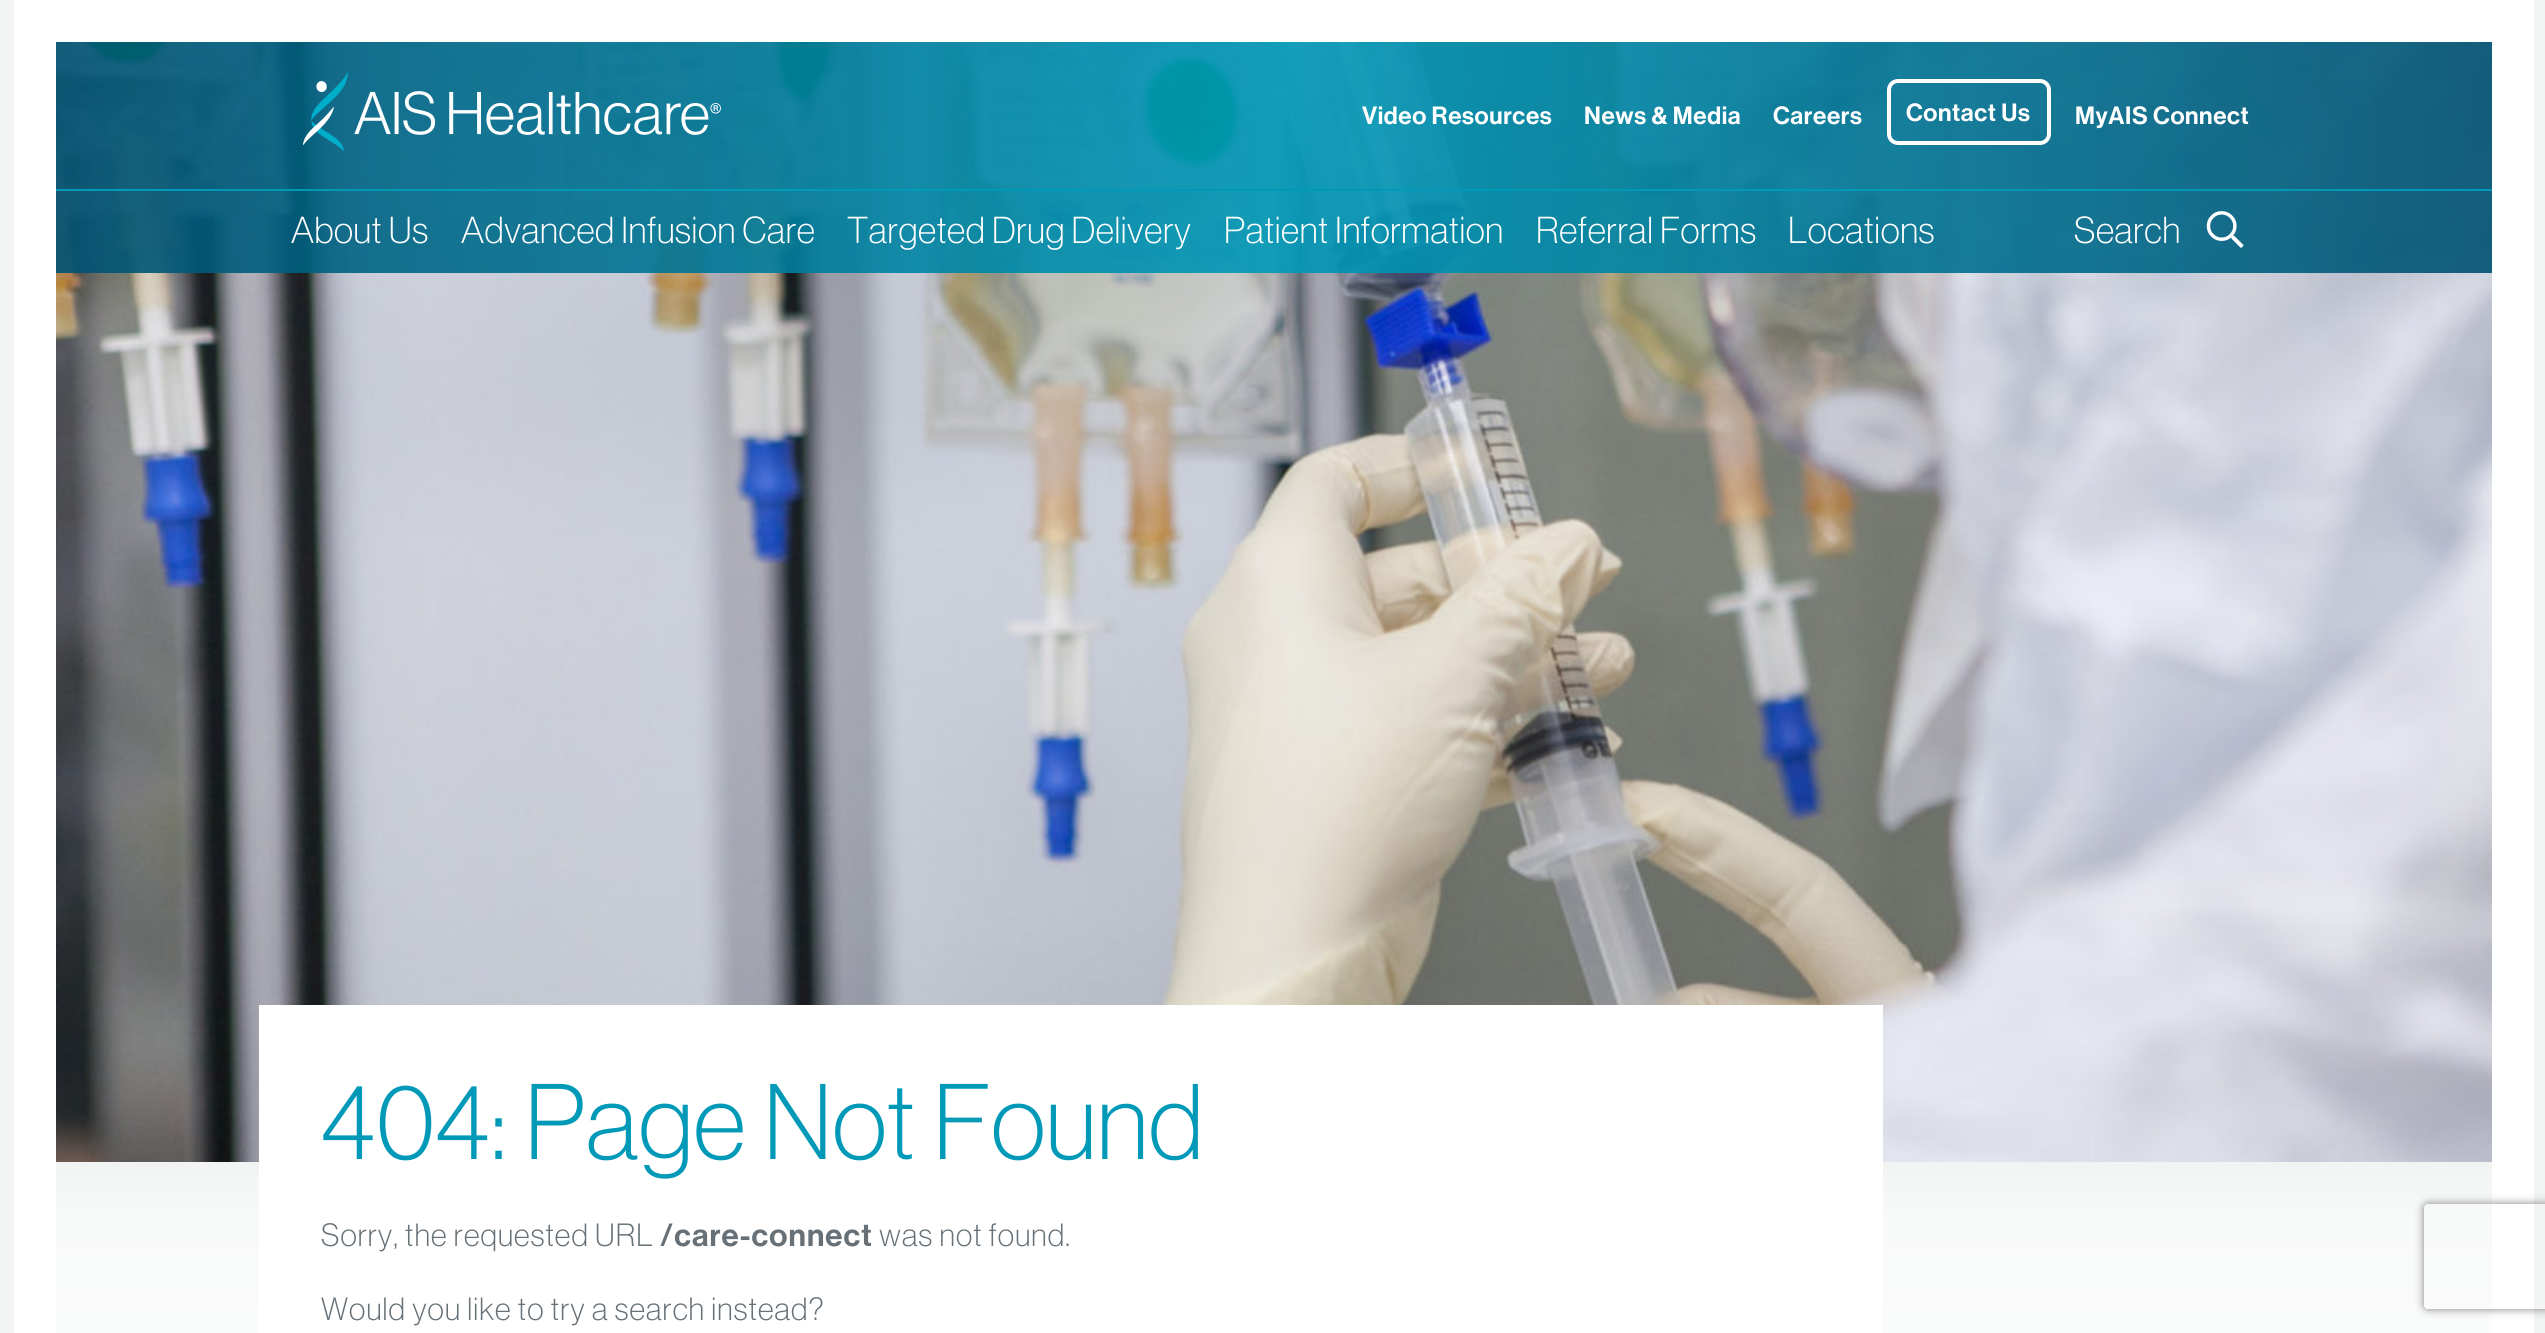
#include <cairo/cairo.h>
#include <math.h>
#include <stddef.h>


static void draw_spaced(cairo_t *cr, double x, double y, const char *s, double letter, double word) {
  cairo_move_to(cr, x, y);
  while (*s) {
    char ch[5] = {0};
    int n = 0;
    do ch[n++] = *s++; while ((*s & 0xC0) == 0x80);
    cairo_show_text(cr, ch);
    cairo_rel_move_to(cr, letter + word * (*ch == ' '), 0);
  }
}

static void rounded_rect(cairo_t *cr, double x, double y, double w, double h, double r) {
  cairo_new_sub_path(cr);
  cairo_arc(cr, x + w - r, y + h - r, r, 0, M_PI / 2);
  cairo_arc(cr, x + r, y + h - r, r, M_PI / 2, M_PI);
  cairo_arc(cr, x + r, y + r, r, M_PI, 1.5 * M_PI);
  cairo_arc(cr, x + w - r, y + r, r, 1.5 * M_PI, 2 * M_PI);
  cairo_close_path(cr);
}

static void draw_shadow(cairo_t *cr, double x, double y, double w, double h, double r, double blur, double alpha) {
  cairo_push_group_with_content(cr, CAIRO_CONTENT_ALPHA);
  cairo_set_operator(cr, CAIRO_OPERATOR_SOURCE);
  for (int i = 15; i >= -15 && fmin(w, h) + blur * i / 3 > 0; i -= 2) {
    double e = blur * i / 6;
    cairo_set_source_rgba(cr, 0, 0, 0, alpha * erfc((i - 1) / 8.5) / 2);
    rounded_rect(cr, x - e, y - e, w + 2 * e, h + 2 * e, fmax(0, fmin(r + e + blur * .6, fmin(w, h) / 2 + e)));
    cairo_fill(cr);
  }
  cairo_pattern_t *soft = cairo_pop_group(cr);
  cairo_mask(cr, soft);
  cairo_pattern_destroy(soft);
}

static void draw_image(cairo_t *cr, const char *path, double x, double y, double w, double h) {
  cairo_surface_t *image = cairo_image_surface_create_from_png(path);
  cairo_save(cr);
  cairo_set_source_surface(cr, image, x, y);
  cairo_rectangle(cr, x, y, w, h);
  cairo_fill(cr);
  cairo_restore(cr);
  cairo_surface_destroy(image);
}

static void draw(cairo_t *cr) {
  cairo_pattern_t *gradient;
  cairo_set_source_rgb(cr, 242 / 255.0, 243 / 255.0, 243 / 255.0);
  cairo_paint(cr);
  cairo_set_source_rgb(cr, 1, 1, 1);
  cairo_rectangle(cr, 14, 0, 2520, 1333);
  cairo_fill(cr);
  draw_image(cr, "images/4.png", 56, 42, 2436, 1120);
  draw_image(cr, "images/1.png", 56, 42, 2436, 231);
  rounded_rect(cr, 1889, 81, 160, 62, 9);
  cairo_set_line_width(cr, 4);
  cairo_stroke(cr);
  cairo_set_source_rgb(cr, 0, 153 / 255.0, 184 / 255.0);
  cairo_rectangle(cr, 56, 189, 2436, 2);
  cairo_fill(cr);
  draw_image(cr, "images/2.png", 303, 72, 418, 79);
  draw_image(cr, "images/3.png", 2206, 211, 38, 37);
  gradient = cairo_pattern_create_linear(1274, 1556, 1274, 1162);
  cairo_pattern_add_color_stop_rgba(gradient, 0, 1, 1, 1, 1);
  cairo_pattern_add_color_stop_rgba(gradient, 0.85, 248 / 255.0, 249 / 255.0, 249 / 255.0, 1);
  cairo_pattern_add_color_stop_rgba(gradient, 1, 242 / 255.0, 243 / 255.0, 243 / 255.0, 1);
  cairo_set_source(cr, gradient);
  cairo_pattern_destroy(gradient);
  cairo_rectangle(cr, 56, 1162, 2436, 171);
  cairo_fill(cr);
  cairo_set_source_rgb(cr, 1, 1, 1);
  cairo_rectangle(cr, 259, 1005, 1624, 328);
  cairo_fill(cr);
  cairo_save(cr);
  cairo_set_fill_rule(cr, CAIRO_FILL_RULE_EVEN_ODD);
  cairo_new_path(cr);
  cairo_move_to(cr, 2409, 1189);
  cairo_line_to(cr, 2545, 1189);
  cairo_line_to(cr, 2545, 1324);
  cairo_line_to(cr, 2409, 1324);
  cairo_close_path(cr);
  cairo_move_to(cr, 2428, 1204);
  cairo_line_to(cr, 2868, 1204);
  cairo_curve_to(cr, 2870, 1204, 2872, 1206, 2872, 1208);
  cairo_line_to(cr, 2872, 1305);
  cairo_curve_to(cr, 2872, 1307, 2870, 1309, 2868, 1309);
  cairo_line_to(cr, 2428, 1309);
  cairo_curve_to(cr, 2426, 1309, 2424, 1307, 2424, 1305);
  cairo_line_to(cr, 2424, 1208);
  cairo_curve_to(cr, 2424, 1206, 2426, 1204, 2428, 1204);
  cairo_close_path(cr);
  cairo_clip(cr);
  cairo_set_source_rgb(cr, 128 / 255.0, 128 / 255.0, 128 / 255.0);
  draw_shadow(cr, 2424, 1204, 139, 105, 4, 4.5, 1);
  cairo_restore(cr);
  cairo_select_font_face(cr, "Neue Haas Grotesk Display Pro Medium", CAIRO_FONT_SLANT_NORMAL, CAIRO_FONT_WEIGHT_NORMAL);
  cairo_set_font_size(cr, 24.5);
  draw_spaced(cr, 1362, 124, "Video Resources", 0.6, 0);
  draw_spaced(cr, 1584, 124, "News & Media", 0.6, 0);
  draw_spaced(cr, 1773, 124, "Careers", 0.6, 0);
  draw_spaced(cr, 1906, 121, "Contact Us", 0.6, 0);
  draw_spaced(cr, 2075, 124, "MyAIS Connect", 0.6, 0);
  cairo_select_font_face(cr, "Neue Haas Grotesk Display Pro", CAIRO_FONT_SLANT_NORMAL, CAIRO_FONT_WEIGHT_NORMAL);
  cairo_set_font_size(cr, 36.75);
  draw_spaced(cr, 291, 243, "About Us", 0.6, 0);
  draw_spaced(cr, 461, 243, "Advanced Infusion Care", 0.6, 0);
  draw_spaced(cr, 847, 243, "Targeted Drug Delivery", 0.6, 0);
  draw_spaced(cr, 1224, 243, "Patient Information", 0.6, 0);
  draw_spaced(cr, 1536, 243, "Referral Forms", 0.6, 0);
  draw_spaced(cr, 1788, 243, "Locations", 0.6, 0);
  draw_spaced(cr, 2074, 243, "Search", 0.6, 0);
  cairo_set_font_size(cr, 105);
  cairo_set_source_rgb(cr, 0, 153 / 255.0, 184 / 255.0);
  draw_spaced(cr, 321, 1159, "404: Page Not Found", 0.75, 0);
  cairo_set_font_size(cr, 31.5);
  cairo_set_source_rgb(cr, 102 / 255.0, 112 / 255.0, 118 / 255.0);
  draw_spaced(cr, 321, 1246, "Sorry, the requested URL", 1.1, 0);
  cairo_select_font_face(cr, "Neue Haas Grotesk Display Pro Medium", CAIRO_FONT_SLANT_NORMAL, CAIRO_FONT_WEIGHT_NORMAL);
  draw_spaced(cr, 660, 1246, "/care-connect", 1.1, 0);
  cairo_select_font_face(cr, "Neue Haas Grotesk Display Pro", CAIRO_FONT_SLANT_NORMAL, CAIRO_FONT_WEIGHT_NORMAL);
  draw_spaced(cr, 879, 1246, "was not found.", 1.1, 0);
  draw_spaced(cr, 321, 1320, "Would you like to try a search instead?", 1.1, 0);
}

int main(void) {
  cairo_surface_t *surface = cairo_image_surface_create(CAIRO_FORMAT_RGB24, 2545, 1333);
  cairo_t *cr = cairo_create(surface);
  cairo_font_options_t *options = cairo_font_options_create();
  cairo_font_options_set_hint_metrics(options, CAIRO_HINT_METRICS_OFF);
  cairo_font_options_set_hint_style(options, CAIRO_HINT_STYLE_NONE);
  cairo_set_font_options(cr, options);
  cairo_set_miter_limit(cr, 4);
  draw(cr);
  cairo_surface_write_to_png(surface, "out.png");
  cairo_font_options_destroy(options);
  cairo_destroy(cr);
  cairo_surface_destroy(surface);
  return 0;
}
